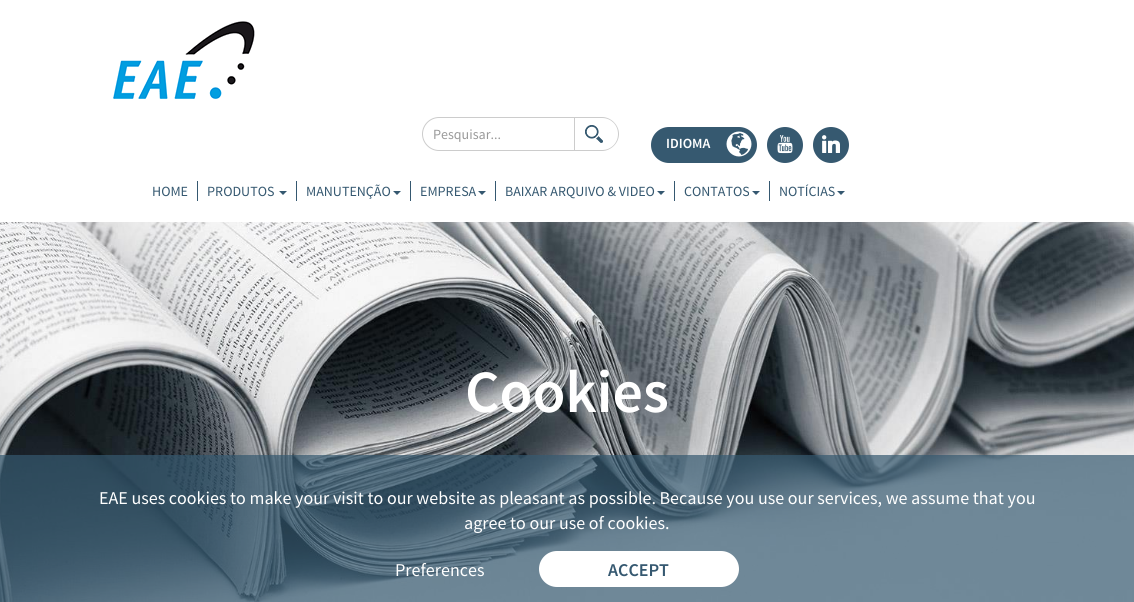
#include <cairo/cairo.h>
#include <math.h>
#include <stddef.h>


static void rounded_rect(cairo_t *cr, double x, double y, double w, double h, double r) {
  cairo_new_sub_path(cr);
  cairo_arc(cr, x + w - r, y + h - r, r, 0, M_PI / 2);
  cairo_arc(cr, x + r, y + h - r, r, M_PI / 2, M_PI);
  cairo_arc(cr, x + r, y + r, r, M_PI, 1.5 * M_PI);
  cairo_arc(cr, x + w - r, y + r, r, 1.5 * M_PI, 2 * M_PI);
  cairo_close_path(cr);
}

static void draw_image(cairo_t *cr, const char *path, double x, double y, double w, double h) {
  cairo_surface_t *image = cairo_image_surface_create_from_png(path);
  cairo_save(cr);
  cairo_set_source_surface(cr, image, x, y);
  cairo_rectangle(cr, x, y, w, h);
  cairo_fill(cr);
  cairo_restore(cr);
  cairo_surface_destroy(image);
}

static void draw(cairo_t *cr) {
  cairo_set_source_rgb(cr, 1, 1, 1);
  cairo_paint(cr);
  draw_image(cr, "images/1.png", 113, 21, 142, 78);
  cairo_new_path(cr);
  cairo_move_to(cr, 439, 117.5);
  cairo_line_to(cr, 574.5, 117.5);
  cairo_line_to(cr, 574.5, 150.5);
  cairo_line_to(cr, 439, 150.5);
  cairo_curve_to(cr, 430, 150.5, 422.5, 143, 422.5, 134);
  cairo_curve_to(cr, 422.5, 125, 430, 117.5, 439, 117.5);
  cairo_close_path(cr);
  cairo_set_source_rgb(cr, 204 / 255.0, 204 / 255.0, 204 / 255.0);
  cairo_set_line_width(cr, 1);
  cairo_stroke(cr);
  cairo_set_fill_rule(cr, CAIRO_FILL_RULE_EVEN_ODD);
  cairo_new_path(cr);
  cairo_move_to(cr, 575, 117);
  cairo_line_to(cr, 602, 117);
  cairo_curve_to(cr, 611, 117, 619, 125, 619, 134);
  cairo_curve_to(cr, 619, 143, 611, 151, 602, 151);
  cairo_line_to(cr, 575, 151);
  cairo_close_path(cr);
  cairo_move_to(cr, 575, 118);
  cairo_line_to(cr, 602, 118);
  cairo_curve_to(cr, 611, 118, 618, 125, 618, 134);
  cairo_curve_to(cr, 618, 143, 611, 150, 602, 150);
  cairo_line_to(cr, 575, 150);
  cairo_close_path(cr);
  cairo_fill(cr);
  draw_image(cr, "images/2.png", 585, 125, 18, 18);
  cairo_set_source_rgb(cr, 54 / 255.0, 89 / 255.0, 112 / 255.0);
  rounded_rect(cr, 651, 127, 106, 36, 18);
  cairo_fill(cr);
  draw_image(cr, "images/3.png", 726, 131, 26, 26);
  cairo_arc(cr, 785, 145, 18, 0, 2 * M_PI);
  cairo_fill(cr);
  draw_image(cr, "images/4.png", 777, 135, 16, 19);
  cairo_arc(cr, 831, 145, 18, 0, 2 * M_PI);
  cairo_fill(cr);
  draw_image(cr, "images/5.png", 822, 135, 18, 18);
  cairo_set_source_rgb(cr, 53 / 255.0, 88 / 255.0, 112 / 255.0);
  cairo_rectangle(cr, 197, 181, 1, 20);
  cairo_fill(cr);
  cairo_rectangle(cr, 296, 181, 1, 20);
  cairo_fill(cr);
  cairo_set_fill_rule(cr, CAIRO_FILL_RULE_WINDING);
  cairo_new_path(cr);
  cairo_move_to(cr, 279, 191);
  cairo_line_to(cr, 287, 191);
  cairo_line_to(cr, 283, 195);
  cairo_close_path(cr);
  cairo_fill(cr);
  cairo_rectangle(cr, 410, 181, 1, 20);
  cairo_fill(cr);
  cairo_new_path(cr);
  cairo_move_to(cr, 393, 191);
  cairo_line_to(cr, 401, 191);
  cairo_line_to(cr, 397, 195);
  cairo_close_path(cr);
  cairo_fill(cr);
  cairo_rectangle(cr, 495, 181, 1, 20);
  cairo_fill(cr);
  cairo_new_path(cr);
  cairo_move_to(cr, 478, 191);
  cairo_line_to(cr, 486, 191);
  cairo_line_to(cr, 482, 195);
  cairo_close_path(cr);
  cairo_fill(cr);
  cairo_rectangle(cr, 674, 181, 1, 20);
  cairo_fill(cr);
  cairo_new_path(cr);
  cairo_move_to(cr, 657, 191);
  cairo_line_to(cr, 665, 191);
  cairo_line_to(cr, 661, 195);
  cairo_close_path(cr);
  cairo_fill(cr);
  cairo_rectangle(cr, 769, 181, 1, 20);
  cairo_fill(cr);
  cairo_new_path(cr);
  cairo_move_to(cr, 752, 191);
  cairo_line_to(cr, 760, 191);
  cairo_line_to(cr, 756, 195);
  cairo_close_path(cr);
  cairo_fill(cr);
  cairo_new_path(cr);
  cairo_move_to(cr, 837, 191);
  cairo_line_to(cr, 845, 191);
  cairo_line_to(cr, 841, 195);
  cairo_close_path(cr);
  cairo_fill(cr);
  draw_image(cr, "images/6.png", 0, 222, 1134, 380);
  cairo_set_source_rgba(cr, 54 / 255.0, 89 / 255.0, 112 / 255.0, 0.7);
  cairo_rectangle(cr, 0, 455, 1134, 147);
  cairo_fill(cr);
  cairo_set_source_rgb(cr, 1, 1, 1);
  rounded_rect(cr, 539, 551, 200, 36, 18);
  cairo_fill(cr);
  cairo_select_font_face(cr, "Source Sans Pro", CAIRO_FONT_SLANT_NORMAL, CAIRO_FONT_WEIGHT_NORMAL);
  cairo_set_font_size(cr, 14);
  cairo_set_source_rgb(cr, 153 / 255.0, 153 / 255.0, 153 / 255.0);
  cairo_move_to(cr, 433, 139);
  cairo_show_text(cr, "Pesquisar...");
  cairo_select_font_face(cr, "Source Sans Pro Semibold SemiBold", CAIRO_FONT_SLANT_NORMAL, CAIRO_FONT_WEIGHT_NORMAL);
  cairo_set_source_rgb(cr, 1, 1, 1);
  cairo_move_to(cr, 666, 148);
  cairo_show_text(cr, "IDIOMA");
  cairo_select_font_face(cr, "Source Sans Pro", CAIRO_FONT_SLANT_NORMAL, CAIRO_FONT_WEIGHT_NORMAL);
  cairo_set_source_rgb(cr, 53 / 255.0, 88 / 255.0, 112 / 255.0);
  cairo_move_to(cr, 152, 196);
  cairo_show_text(cr, "HOME");
  cairo_move_to(cr, 207, 196);
  cairo_show_text(cr, "PRODUTOS");
  cairo_move_to(cr, 306, 196);
  cairo_show_text(cr, "MANUTENÇÃO");
  cairo_move_to(cr, 420, 196);
  cairo_show_text(cr, "EMPRESA");
  cairo_move_to(cr, 505, 196);
  cairo_show_text(cr, "BAIXAR ARQUIVO & VIDEO");
  cairo_move_to(cr, 684, 196);
  cairo_show_text(cr, "CONTATOS");
  cairo_move_to(cr, 779, 196);
  cairo_show_text(cr, "NOTÍCIAS");
  cairo_select_font_face(cr, "Source Sans Pro Semibold SemiBold", CAIRO_FONT_SLANT_NORMAL, CAIRO_FONT_WEIGHT_NORMAL);
  cairo_set_font_size(cr, 60);
  cairo_set_source_rgb(cr, 1, 1, 1);
  cairo_move_to(cr, 465, 412);
  cairo_show_text(cr, "Cookies");
  cairo_select_font_face(cr, "Source Sans Pro", CAIRO_FONT_SLANT_NORMAL, CAIRO_FONT_WEIGHT_NORMAL);
  cairo_set_font_size(cr, 18);
  cairo_move_to(cr, 99, 504);
  cairo_show_text(cr, "EAE uses cookies to make your visit to our website as pleasant as possible. Because you use our services, we assume that you");
  cairo_move_to(cr, 464, 529);
  cairo_show_text(cr, "agree to our use of cookies.");
  cairo_move_to(cr, 395, 576);
  cairo_show_text(cr, "Preferences");
  cairo_select_font_face(cr, "Source Sans Pro Semibold SemiBold", CAIRO_FONT_SLANT_NORMAL, CAIRO_FONT_WEIGHT_NORMAL);
  cairo_set_source_rgb(cr, 53 / 255.0, 88 / 255.0, 112 / 255.0);
  cairo_move_to(cr, 608, 576);
  cairo_show_text(cr, "ACCEPT");
}

int main(void) {
  cairo_surface_t *surface = cairo_image_surface_create(CAIRO_FORMAT_RGB24, 1134, 602);
  cairo_t *cr = cairo_create(surface);
  cairo_font_options_t *options = cairo_font_options_create();
  cairo_font_options_set_hint_metrics(options, CAIRO_HINT_METRICS_OFF);
  cairo_font_options_set_hint_style(options, CAIRO_HINT_STYLE_NONE);
  cairo_set_font_options(cr, options);
  cairo_set_miter_limit(cr, 4);
  draw(cr);
  cairo_surface_write_to_png(surface, "out.png");
  cairo_font_options_destroy(options);
  cairo_destroy(cr);
  cairo_surface_destroy(surface);
  return 0;
}
